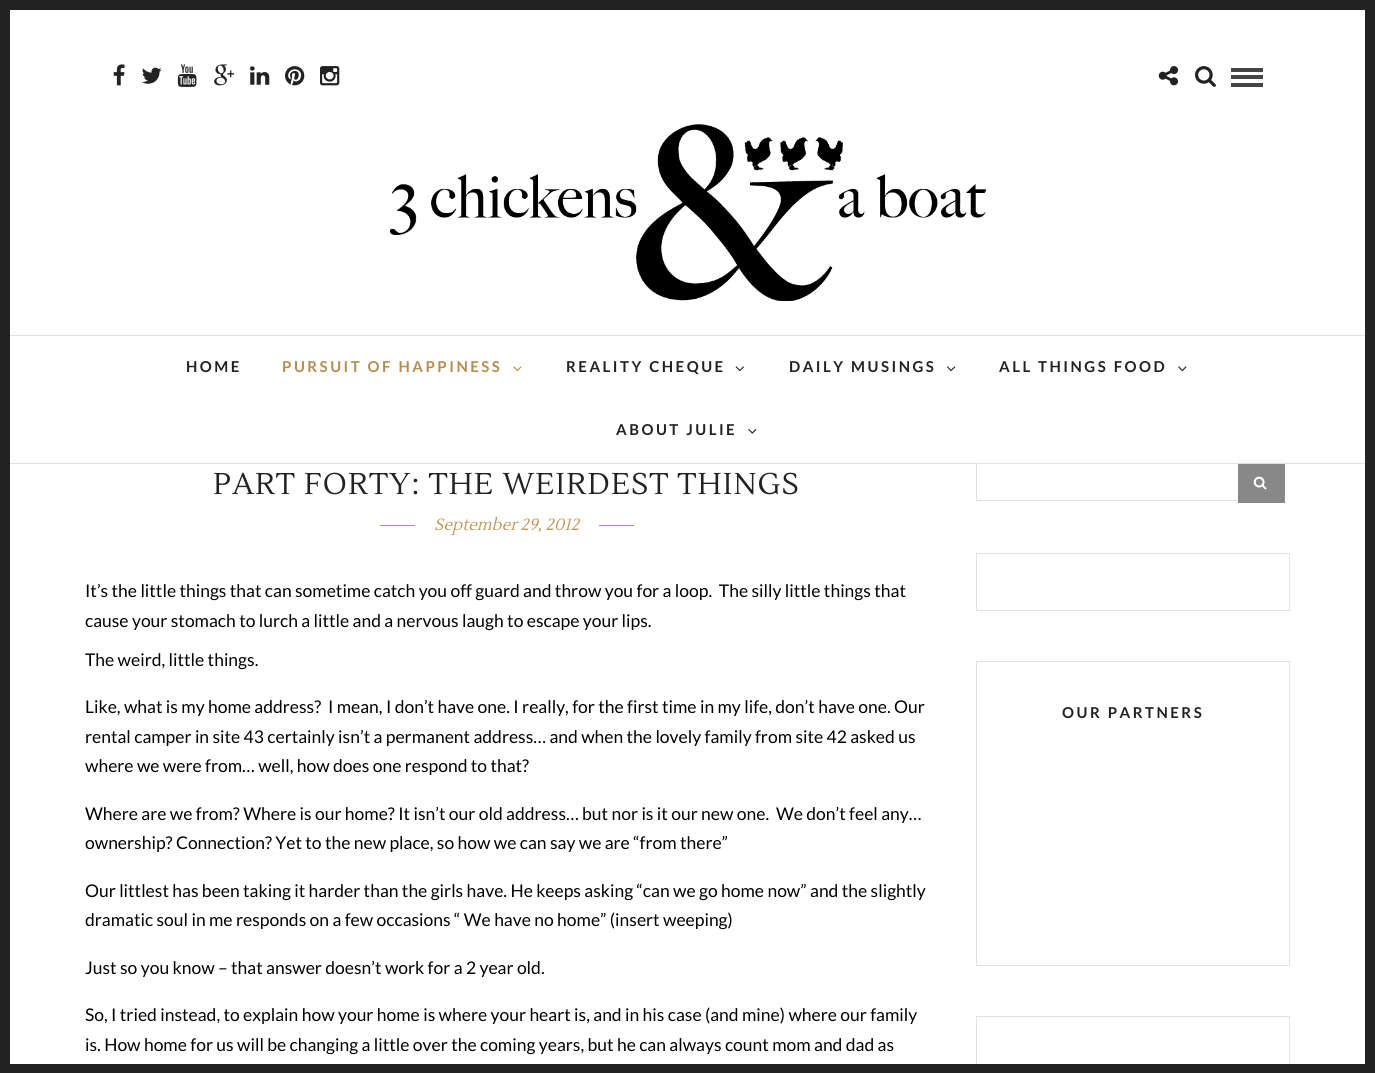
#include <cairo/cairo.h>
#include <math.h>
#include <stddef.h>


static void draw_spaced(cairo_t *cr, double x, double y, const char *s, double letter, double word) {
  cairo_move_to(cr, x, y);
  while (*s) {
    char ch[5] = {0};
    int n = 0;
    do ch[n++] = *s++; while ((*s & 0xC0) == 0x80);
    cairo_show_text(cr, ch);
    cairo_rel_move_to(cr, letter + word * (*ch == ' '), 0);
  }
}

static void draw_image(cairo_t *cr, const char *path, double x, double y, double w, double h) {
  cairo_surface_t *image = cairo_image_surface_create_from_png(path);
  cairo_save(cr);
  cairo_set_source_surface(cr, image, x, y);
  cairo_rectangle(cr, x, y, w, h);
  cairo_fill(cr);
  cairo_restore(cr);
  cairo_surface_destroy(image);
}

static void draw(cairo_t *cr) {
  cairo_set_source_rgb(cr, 1, 1, 1);
  cairo_paint(cr);
  cairo_set_source_rgb(cr, 34 / 255.0, 34 / 255.0, 34 / 255.0);
  cairo_rectangle(cr, 0, 0, 10, 1073);
  cairo_fill(cr);
  cairo_rectangle(cr, 10, 0, 1355, 10);
  cairo_fill(cr);
  cairo_rectangle(cr, 1365, 0, 10, 1073);
  cairo_fill(cr);
  cairo_rectangle(cr, 976.5, 460.5, 263, 40);
  cairo_set_source_rgb(cr, 225 / 255.0, 225 / 255.0, 225 / 255.0);
  cairo_set_line_width(cr, 1);
  cairo_stroke(cr);
  cairo_set_source_rgb(cr, 136 / 255.0, 136 / 255.0, 136 / 255.0);
  cairo_rectangle(cr, 1238, 459, 47, 44);
  cairo_fill(cr);
  cairo_set_source_rgba(cr, 1, 1, 1, 0.95);
  cairo_rectangle(cr, 976, 459, 309, 4);
  cairo_fill(cr);
  cairo_set_source_rgb(cr, 225 / 255.0, 225 / 255.0, 225 / 255.0);
  cairo_rectangle(cr, 10, 463, 1355, 1);
  cairo_fill(cr);
  cairo_rectangle(cr, 10, 335, 1355, 1);
  cairo_fill(cr);
  draw_image(cr, "images/1.png", 113, 64, 12, 22);
  draw_image(cr, "images/2.png", 142, 67, 20, 17);
  draw_image(cr, "images/3.png", 177, 64, 20, 23);
  draw_image(cr, "images/4.png", 214, 64, 20, 22);
  draw_image(cr, "images/5.png", 250, 66, 20, 19);
  draw_image(cr, "images/6.png", 285, 66, 20, 20);
  draw_image(cr, "images/7.png", 320, 66, 20, 20);
  draw_image(cr, "images/8.png", 1158, 66, 20, 20);
  draw_image(cr, "images/9.png", 1195, 66, 21, 21);
  cairo_set_source_rgb(cr, 68 / 255.0, 68 / 255.0, 68 / 255.0);
  cairo_rectangle(cr, 1231, 68, 32, 4);
  cairo_fill(cr);
  cairo_rectangle(cr, 1231, 75, 32, 4);
  cairo_fill(cr);
  cairo_rectangle(cr, 1231, 83, 32, 4);
  cairo_fill(cr);
  draw_image(cr, "images/10.png", 390, 124, 596, 177);
  draw_image(cr, "images/11.png", 513, 366, 9, 6);
  draw_image(cr, "images/12.png", 735, 366, 9, 6);
  draw_image(cr, "images/13.png", 947, 366, 9, 6);
  draw_image(cr, "images/14.png", 1178, 366, 9, 6);
  draw_image(cr, "images/15.png", 748, 428, 9, 6);
  cairo_set_source_rgb(cr, 190 / 255.0, 150 / 255.0, 86 / 255.0);
  cairo_rectangle(cr, 380, 525, 254, 1);
  cairo_fill(cr);
  cairo_set_source_rgb(cr, 1, 1, 1);
  cairo_rectangle(cr, 415, 525, 184, 1);
  cairo_fill(cr);
  draw_image(cr, "images/16.png", 1253, 476, 14, 14);
  cairo_rectangle(cr, 976.5, 553.5, 313, 57);
  cairo_set_source_rgb(cr, 225 / 255.0, 225 / 255.0, 225 / 255.0);
  cairo_stroke(cr);
  cairo_rectangle(cr, 976.5, 661.5, 313, 304);
  cairo_stroke(cr);
  cairo_rectangle(cr, 976.5, 1016.5, 313, 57);
  cairo_stroke(cr);
  cairo_set_source_rgb(cr, 34 / 255.0, 34 / 255.0, 34 / 255.0);
  cairo_rectangle(cr, 10, 1064, 1355, 9);
  cairo_fill(cr);
  cairo_select_font_face(cr, "Lato", CAIRO_FONT_SLANT_NORMAL, CAIRO_FONT_WEIGHT_BOLD);
  cairo_set_font_size(cr, 15);
  draw_spaced(cr, 186, 372, "HOME", 2.5, 0);
  cairo_set_source_rgb(cr, 179 / 255.0, 141 / 255.0, 81 / 255.0);
  draw_spaced(cr, 282, 372, "PURSUIT OF HAPPINESS", 2.5, 0);
  cairo_set_source_rgb(cr, 34 / 255.0, 34 / 255.0, 34 / 255.0);
  draw_spaced(cr, 566, 372, "REALITY CHEQUE", 2.5, 0);
  draw_spaced(cr, 789, 372, "DAILY MUSINGS", 2.5, 0);
  draw_spaced(cr, 999, 372, "ALL THINGS FOOD", 2.5, 0);
  draw_spaced(cr, 616, 435, "ABOUT JULIE", 2.5, 0);
  cairo_select_font_face(cr, "Lustria", CAIRO_FONT_SLANT_NORMAL, CAIRO_FONT_WEIGHT_NORMAL);
  cairo_set_font_size(cr, 30);
  draw_spaced(cr, 213, 494, "PART FORTY: THE WEIRDEST THINGS", 1.25, 0);
  cairo_select_font_face(cr, "Lustria", CAIRO_FONT_SLANT_ITALIC, CAIRO_FONT_WEIGHT_NORMAL);
  cairo_set_font_size(cr, 16.25);
  cairo_set_source_rgb(cr, 190 / 255.0, 150 / 255.0, 86 / 255.0);
  cairo_move_to(cr, 434, 530);
  cairo_show_text(cr, "September 29, 2012");
  cairo_select_font_face(cr, "Lato", CAIRO_FONT_SLANT_NORMAL, CAIRO_FONT_WEIGHT_NORMAL);
  cairo_set_font_size(cr, 17.5);
  cairo_set_source_rgb(cr, 0, 0, 0);
  cairo_move_to(cr, 85, 597);
  cairo_show_text(cr, "It’s the little things that can sometime catch you off guard and throw you for a loop.  The silly little things that");
  cairo_move_to(cr, 85, 627);
  cairo_show_text(cr, "cause your stomach to lurch a little and a nervous laugh to escape your lips.");
  cairo_move_to(cr, 85, 666);
  cairo_show_text(cr, "The weird, little things.");
  cairo_move_to(cr, 85, 713);
  cairo_show_text(cr, "Like, what is my home address?  I mean, I don’t have one. I really, for the first time in my life, don’t have one. Our");
  cairo_move_to(cr, 85, 743);
  cairo_show_text(cr, "rental camper in site 43 certainly isn’t a permanent address… and when the lovely family from site 42 asked us");
  cairo_move_to(cr, 85, 772);
  cairo_show_text(cr, "where we were from… well, how does one respond to that?");
  cairo_move_to(cr, 85, 820);
  cairo_show_text(cr, "Where are we from? Where is our home? It isn’t our old address… but nor is it our new one.  We don’t feel any…");
  cairo_move_to(cr, 85, 849);
  cairo_show_text(cr, "ownership? Connection? Yet to the new place, so how we can say we are “from there”");
  cairo_move_to(cr, 85, 897);
  cairo_show_text(cr, "Our littlest has been taking it harder than the girls have. He keeps asking “can we go home now” and the slightly");
  cairo_move_to(cr, 85, 926);
  cairo_show_text(cr, "dramatic soul in me responds on a few occasions “ We have no home” (insert weeping)");
  cairo_move_to(cr, 85, 974);
  cairo_show_text(cr, "Just so you know – that answer doesn’t work for a 2 year old.");
  cairo_move_to(cr, 85, 1021);
  cairo_show_text(cr, "So, I tried instead, to explain how your home is where your heart is, and in his case (and mine) where our family");
  cairo_move_to(cr, 85, 1051);
  cairo_show_text(cr, "is. How home for us will be changing a little over the coming years, but he can always count mom and dad as");
  cairo_select_font_face(cr, "Lato", CAIRO_FONT_SLANT_NORMAL, CAIRO_FONT_WEIGHT_BOLD);
  cairo_set_font_size(cr, 15);
  cairo_set_source_rgb(cr, 34 / 255.0, 34 / 255.0, 34 / 255.0);
  draw_spaced(cr, 1062, 718, "OUR PARTNERS", 2.5, 0);
}

int main(void) {
  cairo_surface_t *surface = cairo_image_surface_create(CAIRO_FORMAT_RGB24, 1375, 1073);
  cairo_t *cr = cairo_create(surface);
  cairo_font_options_t *options = cairo_font_options_create();
  cairo_font_options_set_hint_metrics(options, CAIRO_HINT_METRICS_OFF);
  cairo_font_options_set_hint_style(options, CAIRO_HINT_STYLE_NONE);
  cairo_set_font_options(cr, options);
  cairo_set_miter_limit(cr, 4);
  draw(cr);
  cairo_surface_write_to_png(surface, "out.png");
  cairo_font_options_destroy(options);
  cairo_destroy(cr);
  cairo_surface_destroy(surface);
  return 0;
}
